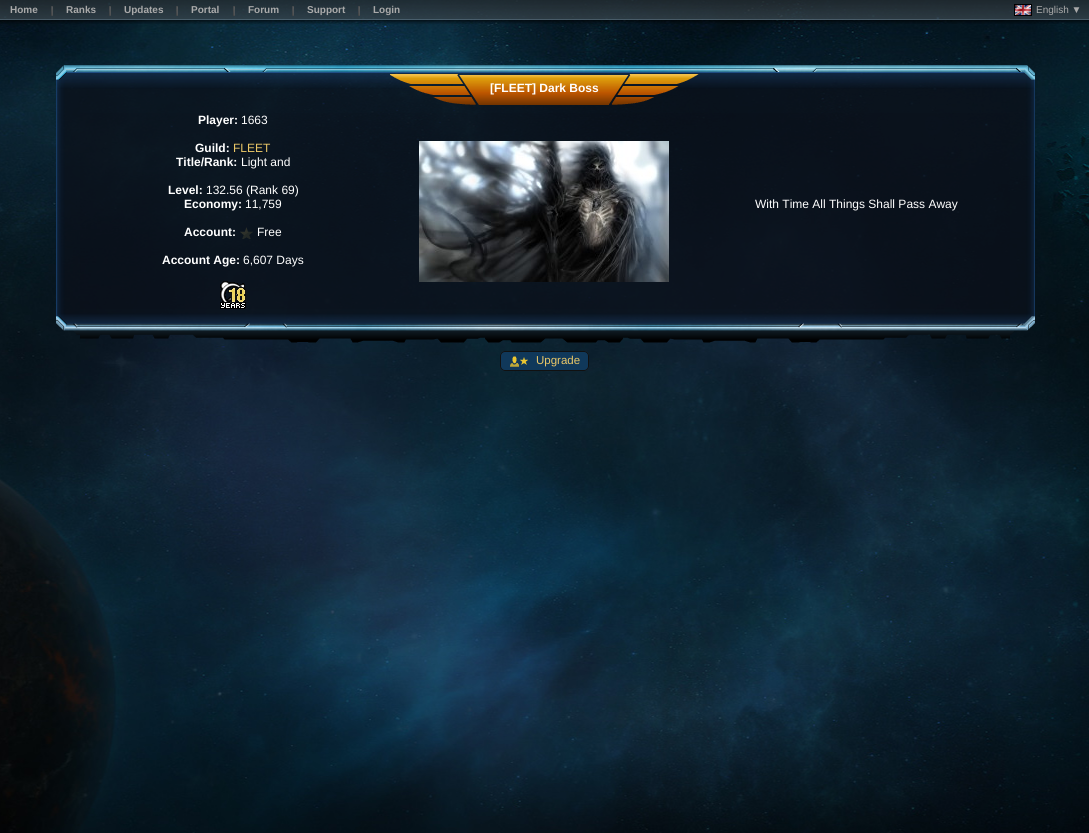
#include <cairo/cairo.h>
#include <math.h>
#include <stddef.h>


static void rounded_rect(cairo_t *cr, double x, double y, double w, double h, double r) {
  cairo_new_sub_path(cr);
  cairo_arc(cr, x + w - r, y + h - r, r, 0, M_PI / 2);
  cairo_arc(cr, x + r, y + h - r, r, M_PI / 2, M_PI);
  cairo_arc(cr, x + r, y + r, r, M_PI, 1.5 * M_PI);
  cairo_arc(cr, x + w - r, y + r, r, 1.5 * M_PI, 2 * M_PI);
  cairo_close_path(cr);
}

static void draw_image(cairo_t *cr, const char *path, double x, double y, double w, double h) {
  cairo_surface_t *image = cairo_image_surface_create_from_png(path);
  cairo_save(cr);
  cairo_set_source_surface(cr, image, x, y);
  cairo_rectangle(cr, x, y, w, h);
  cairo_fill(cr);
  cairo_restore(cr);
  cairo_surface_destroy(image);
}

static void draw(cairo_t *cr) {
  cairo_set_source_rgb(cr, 1, 1, 1);
  cairo_paint(cr);
  draw_image(cr, "images/1.png", 0, 0, 1089, 833);
  draw_image(cr, "images/2.png", 0, 0, 1089, 24);
  draw_image(cr, "images/3.png", 51, 6, 2, 10);
  draw_image(cr, "images/4.png", 109, 6, 2, 10);
  draw_image(cr, "images/5.png", 176, 6, 2, 10);
  draw_image(cr, "images/6.png", 233, 6, 2, 10);
  draw_image(cr, "images/7.png", 292, 6, 2, 10);
  draw_image(cr, "images/8.png", 358, 6, 2, 10);
  draw_image(cr, "images/9.png", 1014, 4, 18, 12);
  draw_image(cr, "images/10.png", 56, 65, 24, 48);
  draw_image(cr, "images/11.png", 80, 65, 930, 48);
  draw_image(cr, "images/12.png", 390, 74, 90, 31);
  draw_image(cr, "images/13.png", 480, 75, 129, 30);
  draw_image(cr, "images/14.png", 609, 74, 90, 31);
  draw_image(cr, "images/15.png", 1010, 65, 25, 48);
  draw_image(cr, "images/16.png", 56, 113, 24, 196);
  cairo_set_source_rgba(cr, 10 / 255.0, 16 / 255.0, 26 / 255.0, 0.8);
  cairo_rectangle(cr, 80, 113, 930, 196);
  cairo_fill(cr);
  draw_image(cr, "images/17.png", 240, 227, 13, 12);
  draw_image(cr, "images/18.png", 220, 281, 26, 28);
  draw_image(cr, "images/19.png", 419, 141, 250, 141);
  draw_image(cr, "images/20.png", 1010, 113, 25, 196);
  draw_image(cr, "images/21.png", 56, 309, 24, 26);
  draw_image(cr, "images/22.png", 80, 309, 930, 34);
  draw_image(cr, "images/23.png", 1010, 309, 25, 26);
  cairo_set_source_rgb(cr, 16 / 255.0, 56 / 255.0, 90 / 255.0);
  rounded_rect(cr, 500, 351, 89, 20, 5);
  cairo_fill(cr);
  draw_image(cr, "images/24.png", 510, 356, 18, 11);
  rounded_rect(cr, 500.5, 351.5, 88, 19, 4.5);
  cairo_set_source_rgb(cr, 17 / 255.0, 17 / 255.0, 17 / 255.0);
  cairo_set_line_width(cr, 1);
  cairo_stroke(cr);
  cairo_select_font_face(cr, "Liberation Sans", CAIRO_FONT_SLANT_NORMAL, CAIRO_FONT_WEIGHT_BOLD);
  cairo_set_font_size(cr, 10);
  cairo_set_source_rgb(cr, 170 / 255.0, 170 / 255.0, 170 / 255.0);
  cairo_move_to(cr, 10, 13);
  cairo_show_text(cr, "Home");
  cairo_move_to(cr, 66, 13);
  cairo_show_text(cr, "Ranks");
  cairo_move_to(cr, 124, 13);
  cairo_show_text(cr, "Updates");
  cairo_move_to(cr, 191, 13);
  cairo_show_text(cr, "Portal");
  cairo_move_to(cr, 248, 13);
  cairo_show_text(cr, "Forum");
  cairo_move_to(cr, 307, 13);
  cairo_show_text(cr, "Support");
  cairo_move_to(cr, 373, 13);
  cairo_show_text(cr, "Login");
  cairo_select_font_face(cr, "Liberation Sans", CAIRO_FONT_SLANT_NORMAL, CAIRO_FONT_WEIGHT_NORMAL);
  cairo_move_to(cr, 1036, 13);
  cairo_show_text(cr, "English ▼");
  cairo_select_font_face(cr, "Liberation Sans", CAIRO_FONT_SLANT_NORMAL, CAIRO_FONT_WEIGHT_BOLD);
  cairo_set_font_size(cr, 12);
  cairo_set_source_rgb(cr, 1, 1, 1);
  cairo_move_to(cr, 490, 92);
  cairo_show_text(cr, "[FLEET] Dark Boss");
  cairo_move_to(cr, 198, 124);
  cairo_show_text(cr, "Player:");
  cairo_select_font_face(cr, "Liberation Sans", CAIRO_FONT_SLANT_NORMAL, CAIRO_FONT_WEIGHT_NORMAL);
  cairo_move_to(cr, 241, 124);
  cairo_show_text(cr, "1663");
  cairo_select_font_face(cr, "Liberation Sans", CAIRO_FONT_SLANT_NORMAL, CAIRO_FONT_WEIGHT_BOLD);
  cairo_move_to(cr, 195, 152);
  cairo_show_text(cr, "Guild:");
  cairo_select_font_face(cr, "Liberation Sans", CAIRO_FONT_SLANT_NORMAL, CAIRO_FONT_WEIGHT_NORMAL);
  cairo_set_source_rgb(cr, 234 / 255.0, 199 / 255.0, 103 / 255.0);
  cairo_move_to(cr, 233, 152);
  cairo_show_text(cr, "FLEET");
  cairo_select_font_face(cr, "Liberation Sans", CAIRO_FONT_SLANT_NORMAL, CAIRO_FONT_WEIGHT_BOLD);
  cairo_set_source_rgb(cr, 1, 1, 1);
  cairo_move_to(cr, 176, 166);
  cairo_show_text(cr, "Title/Rank:");
  cairo_select_font_face(cr, "Liberation Sans", CAIRO_FONT_SLANT_NORMAL, CAIRO_FONT_WEIGHT_NORMAL);
  cairo_move_to(cr, 241, 166);
  cairo_show_text(cr, "Light and");
  cairo_select_font_face(cr, "Liberation Sans", CAIRO_FONT_SLANT_NORMAL, CAIRO_FONT_WEIGHT_BOLD);
  cairo_move_to(cr, 168, 194);
  cairo_show_text(cr, "Level:");
  cairo_select_font_face(cr, "Liberation Sans", CAIRO_FONT_SLANT_NORMAL, CAIRO_FONT_WEIGHT_NORMAL);
  cairo_move_to(cr, 206, 194);
  cairo_show_text(cr, "132.56 (Rank 69)");
  cairo_select_font_face(cr, "Liberation Sans", CAIRO_FONT_SLANT_NORMAL, CAIRO_FONT_WEIGHT_BOLD);
  cairo_move_to(cr, 184, 208);
  cairo_show_text(cr, "Economy:");
  cairo_select_font_face(cr, "Liberation Sans", CAIRO_FONT_SLANT_NORMAL, CAIRO_FONT_WEIGHT_NORMAL);
  cairo_move_to(cr, 245, 208);
  cairo_show_text(cr, "11,759");
  cairo_select_font_face(cr, "Liberation Sans", CAIRO_FONT_SLANT_NORMAL, CAIRO_FONT_WEIGHT_BOLD);
  cairo_move_to(cr, 184, 236);
  cairo_show_text(cr, "Account:");
  cairo_select_font_face(cr, "Liberation Sans", CAIRO_FONT_SLANT_NORMAL, CAIRO_FONT_WEIGHT_NORMAL);
  cairo_move_to(cr, 257, 236);
  cairo_show_text(cr, "Free");
  cairo_select_font_face(cr, "Liberation Sans", CAIRO_FONT_SLANT_NORMAL, CAIRO_FONT_WEIGHT_BOLD);
  cairo_move_to(cr, 162, 264);
  cairo_show_text(cr, "Account Age:");
  cairo_select_font_face(cr, "Liberation Sans", CAIRO_FONT_SLANT_NORMAL, CAIRO_FONT_WEIGHT_NORMAL);
  cairo_move_to(cr, 243, 264);
  cairo_show_text(cr, "6,607 Days");
  cairo_move_to(cr, 755, 208);
  cairo_show_text(cr, "With Time All Things Shall Pass Away");
  cairo_set_font_size(cr, 11.5);
  cairo_set_source_rgb(cr, 234 / 255.0, 199 / 255.0, 103 / 255.0);
  cairo_move_to(cr, 536, 364);
  cairo_show_text(cr, "Upgrade");
}

int main(void) {
  cairo_surface_t *surface = cairo_image_surface_create(CAIRO_FORMAT_RGB24, 1089, 833);
  cairo_t *cr = cairo_create(surface);
  cairo_font_options_t *options = cairo_font_options_create();
  cairo_font_options_set_hint_metrics(options, CAIRO_HINT_METRICS_OFF);
  cairo_font_options_set_hint_style(options, CAIRO_HINT_STYLE_NONE);
  cairo_set_font_options(cr, options);
  cairo_set_miter_limit(cr, 4);
  draw(cr);
  cairo_surface_write_to_png(surface, "out.png");
  cairo_font_options_destroy(options);
  cairo_destroy(cr);
  cairo_surface_destroy(surface);
  return 0;
}
